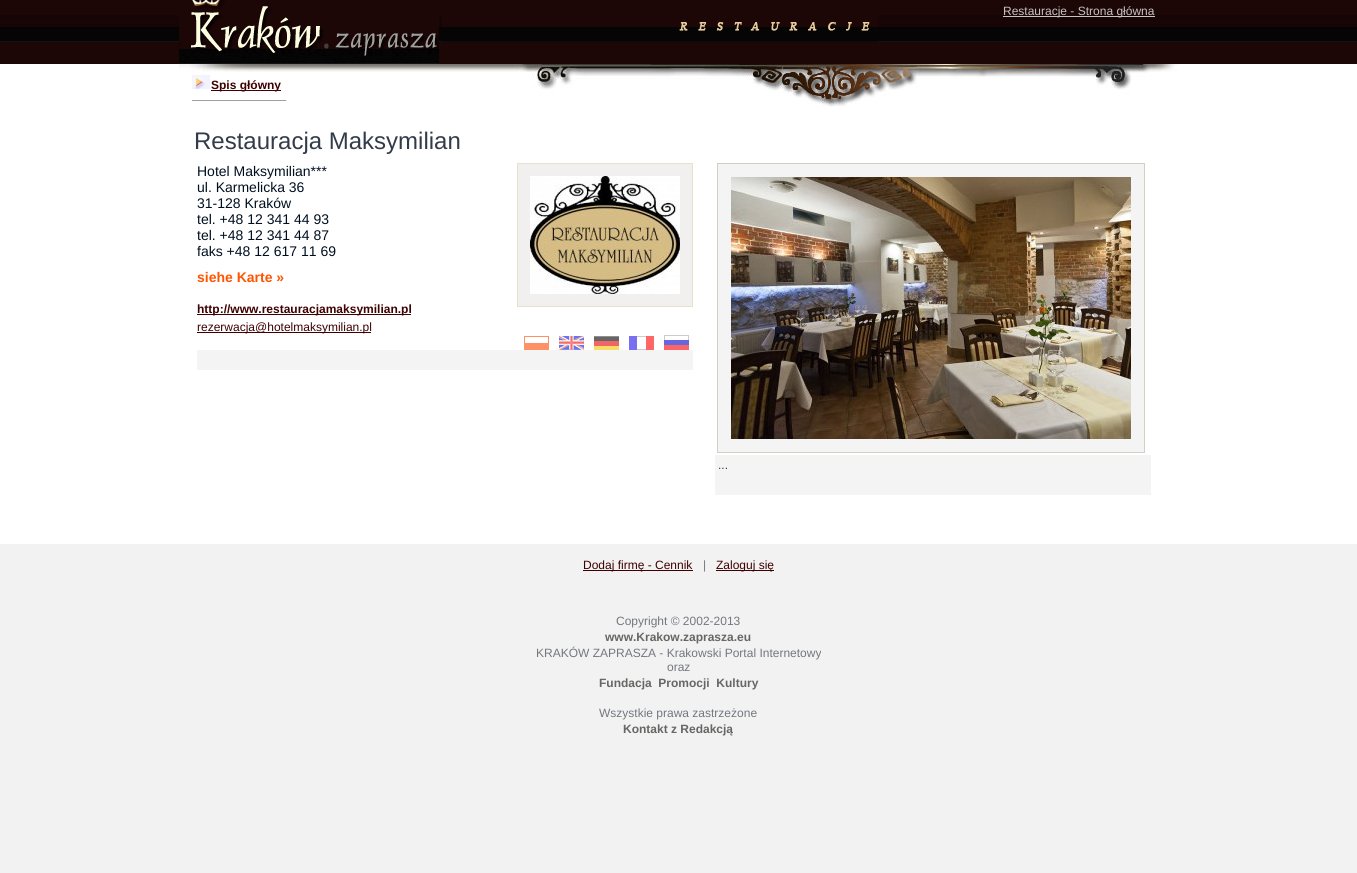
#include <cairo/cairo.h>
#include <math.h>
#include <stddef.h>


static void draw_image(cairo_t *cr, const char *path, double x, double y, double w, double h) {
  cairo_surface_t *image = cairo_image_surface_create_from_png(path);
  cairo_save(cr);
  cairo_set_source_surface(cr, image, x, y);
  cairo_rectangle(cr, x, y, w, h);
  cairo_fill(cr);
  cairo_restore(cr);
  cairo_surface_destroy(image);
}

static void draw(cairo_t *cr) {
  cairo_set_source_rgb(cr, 1, 1, 1);
  cairo_paint(cr);
  draw_image(cr, "images/1.png", 0, 0, 1357, 64);
  draw_image(cr, "images/2.png", 179, 0, 260, 64);
  cairo_set_source_rgb(cr, 197 / 255.0, 196 / 255.0, 195 / 255.0);
  cairo_rectangle(cr, 1003, 16, 152, 1);
  cairo_fill(cr);
  draw_image(cr, "images/3.png", 442, 15, 436, 27);
  draw_image(cr, "images/4.png", 179, 64, 1000, 43);
  draw_image(cr, "images/5.png", 192, 75, 18, 14);
  cairo_set_source_rgb(cr, 62 / 255.0, 0, 0);
  cairo_rectangle(cr, 211, 90, 70, 1);
  cairo_fill(cr);
  cairo_set_source_rgb(cr, 159 / 255.0, 159 / 255.0, 159 / 255.0);
  cairo_rectangle(cr, 192, 100, 95, 1);
  cairo_fill(cr);
  cairo_set_source_rgb(cr, 238 / 255.0, 238 / 255.0, 238 / 255.0);
  cairo_rectangle(cr, 286, 100, 1, 1);
  cairo_fill(cr);
  cairo_set_source_rgb(cr, 62 / 255.0, 0, 0);
  cairo_rectangle(cr, 197, 314, 214, 1);
  cairo_fill(cr);
  cairo_rectangle(cr, 197, 332, 174, 1);
  cairo_fill(cr);
  cairo_set_source_rgb(cr, 242 / 255.0, 240 / 255.0, 239 / 255.0);
  cairo_rectangle(cr, 517.5, 163.5, 175, 143);
  cairo_fill_preserve(cr);
  cairo_set_source_rgb(cr, 229 / 255.0, 225 / 255.0, 205 / 255.0);
  cairo_set_line_width(cr, 1);
  cairo_stroke(cr);
  draw_image(cr, "images/6.png", 530, 176, 150, 118);
  draw_image(cr, "images/7.png", 524, 336, 25, 14);
  draw_image(cr, "images/8.png", 559, 336, 25, 14);
  draw_image(cr, "images/9.png", 594, 336, 25, 14);
  draw_image(cr, "images/10.png", 629, 336, 25, 14);
  draw_image(cr, "images/11.png", 664, 335, 25, 15);
  cairo_set_source_rgb(cr, 244 / 255.0, 244 / 255.0, 244 / 255.0);
  cairo_rectangle(cr, 197, 350, 496, 20);
  cairo_fill(cr);
  cairo_rectangle(cr, 717.5, 163.5, 427, 289);
  cairo_fill_preserve(cr);
  cairo_set_source_rgb(cr, 209 / 255.0, 207 / 255.0, 198 / 255.0);
  cairo_stroke(cr);
  draw_image(cr, "images/12.png", 731, 177, 400, 262);
  cairo_set_source_rgb(cr, 244 / 255.0, 244 / 255.0, 244 / 255.0);
  cairo_rectangle(cr, 715, 455, 436, 40);
  cairo_fill(cr);
  cairo_set_source_rgb(cr, 242 / 255.0, 242 / 255.0, 242 / 255.0);
  cairo_rectangle(cr, 0, 544, 1357, 329);
  cairo_fill(cr);
  cairo_set_source_rgb(cr, 62 / 255.0, 0, 0);
  cairo_rectangle(cr, 583, 570, 110, 1);
  cairo_fill(cr);
  cairo_rectangle(cr, 716, 570, 58, 1);
  cairo_fill(cr);
  cairo_select_font_face(cr, "Liberation Sans", CAIRO_FONT_SLANT_NORMAL, CAIRO_FONT_WEIGHT_NORMAL);
  cairo_set_font_size(cr, 12);
  cairo_set_source_rgb(cr, 197 / 255.0, 196 / 255.0, 195 / 255.0);
  cairo_move_to(cr, 1003, 15);
  cairo_show_text(cr, "Restauracje - Strona główna");
  cairo_select_font_face(cr, "Liberation Sans", CAIRO_FONT_SLANT_NORMAL, CAIRO_FONT_WEIGHT_BOLD);
  cairo_set_source_rgb(cr, 62 / 255.0, 0, 0);
  cairo_move_to(cr, 211, 89);
  cairo_show_text(cr, "Spis główny");
  cairo_select_font_face(cr, "Liberation Sans", CAIRO_FONT_SLANT_NORMAL, CAIRO_FONT_WEIGHT_NORMAL);
  cairo_set_font_size(cr, 24);
  cairo_set_source_rgb(cr, 50 / 255.0, 60 / 255.0, 73 / 255.0);
  cairo_move_to(cr, 194, 149);
  cairo_show_text(cr, "Restauracja Maksymilian");
  cairo_set_font_size(cr, 14);
  cairo_set_source_rgb(cr, 0, 15 / 255.0, 32 / 255.0);
  cairo_move_to(cr, 197, 176);
  cairo_show_text(cr, "Hotel Maksymilian***");
  cairo_move_to(cr, 197, 192);
  cairo_show_text(cr, "ul. Karmelicka 36");
  cairo_move_to(cr, 197, 208);
  cairo_show_text(cr, "31-128 Kraków");
  cairo_move_to(cr, 197, 224);
  cairo_show_text(cr, "tel. +48 12 341 44 93");
  cairo_move_to(cr, 197, 240);
  cairo_show_text(cr, "tel. +48 12 341 44 87");
  cairo_move_to(cr, 197, 256);
  cairo_show_text(cr, "faks +48 12 617 11 69");
  cairo_select_font_face(cr, "Liberation Sans", CAIRO_FONT_SLANT_NORMAL, CAIRO_FONT_WEIGHT_BOLD);
  cairo_set_source_rgb(cr, 1, 84 / 255.0, 0);
  cairo_move_to(cr, 197, 282);
  cairo_show_text(cr, "siehe Karte »");
  cairo_set_font_size(cr, 12);
  cairo_set_source_rgb(cr, 62 / 255.0, 0, 0);
  cairo_move_to(cr, 197, 313);
  cairo_show_text(cr, "http://www.restauracjamaksymilian.pl");
  cairo_select_font_face(cr, "Liberation Sans", CAIRO_FONT_SLANT_NORMAL, CAIRO_FONT_WEIGHT_NORMAL);
  cairo_move_to(cr, 197, 331);
  cairo_show_text(cr, "rezerwacja@hotelmaksymilian.pl");
  cairo_set_source_rgb(cr, 50 / 255.0, 60 / 255.0, 73 / 255.0);
  cairo_move_to(cr, 718, 469);
  cairo_show_text(cr, "...");
  cairo_set_source_rgb(cr, 62 / 255.0, 0, 0);
  cairo_move_to(cr, 583, 569);
  cairo_show_text(cr, "Dodaj firmę - Cennik");
  cairo_set_source_rgb(cr, 115 / 255.0, 119 / 255.0, 126 / 255.0);
  cairo_move_to(cr, 703, 569);
  cairo_show_text(cr, "|");
  cairo_set_source_rgb(cr, 62 / 255.0, 0, 0);
  cairo_move_to(cr, 716, 569);
  cairo_show_text(cr, "Zaloguj się");
  cairo_set_source_rgb(cr, 115 / 255.0, 119 / 255.0, 126 / 255.0);
  cairo_move_to(cr, 616, 625);
  cairo_show_text(cr, "Copyright © 2002-2013");
  cairo_select_font_face(cr, "Liberation Sans", CAIRO_FONT_SLANT_NORMAL, CAIRO_FONT_WEIGHT_BOLD);
  cairo_set_source_rgb(cr, 102 / 255.0, 102 / 255.0, 100 / 255.0);
  cairo_move_to(cr, 605, 641);
  cairo_show_text(cr, "www.Krakow.zaprasza.eu");
  cairo_select_font_face(cr, "Liberation Sans", CAIRO_FONT_SLANT_NORMAL, CAIRO_FONT_WEIGHT_NORMAL);
  cairo_set_source_rgb(cr, 115 / 255.0, 119 / 255.0, 126 / 255.0);
  cairo_move_to(cr, 536, 657);
  cairo_show_text(cr, "KRAKÓW ZAPRASZA - Krakowski Portal Internetowy");
  cairo_move_to(cr, 667, 671);
  cairo_show_text(cr, "oraz");
  cairo_select_font_face(cr, "Liberation Sans", CAIRO_FONT_SLANT_NORMAL, CAIRO_FONT_WEIGHT_BOLD);
  cairo_set_source_rgb(cr, 102 / 255.0, 102 / 255.0, 100 / 255.0);
  cairo_move_to(cr, 599, 687);
  cairo_show_text(cr, "Fundacja  Promocji  Kultury");
  cairo_select_font_face(cr, "Liberation Sans", CAIRO_FONT_SLANT_NORMAL, CAIRO_FONT_WEIGHT_NORMAL);
  cairo_set_source_rgb(cr, 115 / 255.0, 119 / 255.0, 126 / 255.0);
  cairo_move_to(cr, 599, 717);
  cairo_show_text(cr, "Wszystkie prawa zastrzeżone");
  cairo_select_font_face(cr, "Liberation Sans", CAIRO_FONT_SLANT_NORMAL, CAIRO_FONT_WEIGHT_BOLD);
  cairo_set_source_rgb(cr, 102 / 255.0, 102 / 255.0, 100 / 255.0);
  cairo_move_to(cr, 623, 733);
  cairo_show_text(cr, "Kontakt z Redakcją");
}

int main(void) {
  cairo_surface_t *surface = cairo_image_surface_create(CAIRO_FORMAT_RGB24, 1357, 873);
  cairo_t *cr = cairo_create(surface);
  cairo_font_options_t *options = cairo_font_options_create();
  cairo_font_options_set_hint_metrics(options, CAIRO_HINT_METRICS_OFF);
  cairo_font_options_set_hint_style(options, CAIRO_HINT_STYLE_NONE);
  cairo_set_font_options(cr, options);
  cairo_set_miter_limit(cr, 4);
  draw(cr);
  cairo_surface_write_to_png(surface, "out.png");
  cairo_font_options_destroy(options);
  cairo_destroy(cr);
  cairo_surface_destroy(surface);
  return 0;
}
